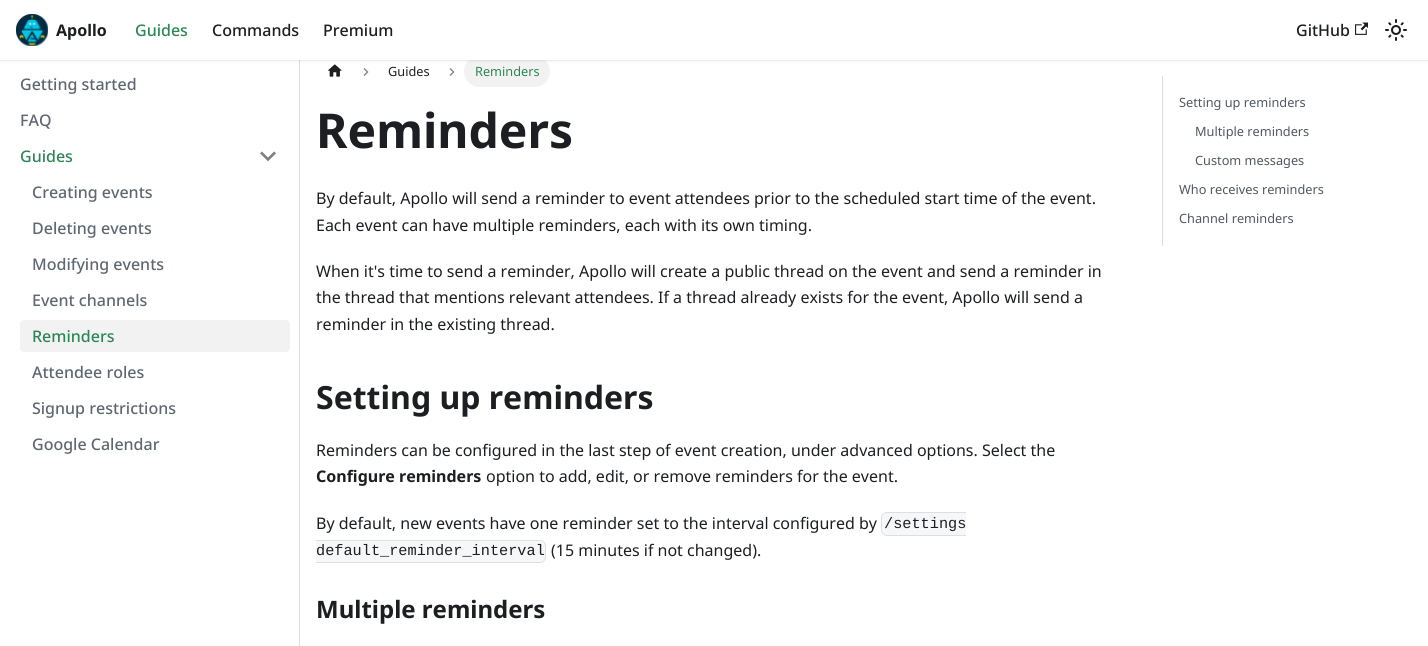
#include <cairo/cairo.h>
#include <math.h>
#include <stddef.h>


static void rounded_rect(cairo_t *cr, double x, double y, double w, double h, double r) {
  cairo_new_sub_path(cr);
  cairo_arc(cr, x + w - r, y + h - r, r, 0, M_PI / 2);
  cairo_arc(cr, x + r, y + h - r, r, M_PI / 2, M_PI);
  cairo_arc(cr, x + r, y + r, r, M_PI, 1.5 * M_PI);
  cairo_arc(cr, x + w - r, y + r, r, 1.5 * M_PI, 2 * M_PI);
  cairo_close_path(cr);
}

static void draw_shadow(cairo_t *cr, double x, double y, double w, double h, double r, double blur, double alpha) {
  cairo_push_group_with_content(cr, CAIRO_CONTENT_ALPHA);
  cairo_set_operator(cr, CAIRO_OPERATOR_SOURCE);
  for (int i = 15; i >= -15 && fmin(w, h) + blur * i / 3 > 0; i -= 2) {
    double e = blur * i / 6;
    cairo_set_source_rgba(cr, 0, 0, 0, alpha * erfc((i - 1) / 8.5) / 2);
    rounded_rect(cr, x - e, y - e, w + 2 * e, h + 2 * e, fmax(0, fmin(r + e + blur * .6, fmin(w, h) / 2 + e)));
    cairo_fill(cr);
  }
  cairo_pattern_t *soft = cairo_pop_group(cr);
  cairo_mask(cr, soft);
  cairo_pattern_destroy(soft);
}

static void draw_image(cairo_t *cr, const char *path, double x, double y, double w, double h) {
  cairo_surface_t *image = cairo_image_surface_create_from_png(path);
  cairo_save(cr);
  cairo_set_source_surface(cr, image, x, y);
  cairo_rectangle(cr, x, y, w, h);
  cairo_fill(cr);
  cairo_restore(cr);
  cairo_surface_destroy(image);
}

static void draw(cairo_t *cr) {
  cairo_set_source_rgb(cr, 1, 1, 1);
  cairo_paint(cr);
  cairo_set_source_rgb(cr, 218 / 255.0, 221 / 255.0, 225 / 255.0);
  cairo_rectangle(cr, 299, 60, 1, 586);
  cairo_fill(cr);
  draw_image(cr, "images/5.png", 328, 64, 14, 13);
  cairo_set_source_rgb(cr, 242 / 255.0, 242 / 255.0, 242 / 255.0);
  rounded_rect(cr, 464, 56, 86, 31, 15.5);
  cairo_fill(cr);
  cairo_set_source_rgb(cr, 0, 0, 0);
  draw_shadow(cr, 0, 1, 1428, 60, 0, 1, 0.1);
  cairo_set_source_rgb(cr, 1, 1, 1);
  cairo_rectangle(cr, 0, 0, 1428, 60);
  cairo_fill(cr);
  draw_image(cr, "images/1.png", 16, 14, 32, 32);
  draw_image(cr, "images/2.png", 1355, 22, 13, 13);
  draw_image(cr, "images/3.png", 1385, 19, 22, 22);
  draw_image(cr, "images/4.png", 260, 151, 16, 11);
  cairo_set_source_rgb(cr, 242 / 255.0, 242 / 255.0, 242 / 255.0);
  rounded_rect(cr, 20, 320, 270, 32, 4);
  cairo_fill(cr);
  draw_image(cr, "images/6.png", 363, 68, 6, 8);
  draw_image(cr, "images/6.png", 449, 68, 6, 8);
  cairo_set_source_rgb(cr, 246 / 255.0, 247 / 255.0, 248 / 255.0);
  cairo_new_path(cr);
  cairo_move_to(cr, 887, 512);
  cairo_line_to(cr, 966, 512);
  cairo_line_to(cr, 966, 536);
  cairo_line_to(cr, 887, 536);
  cairo_curve_to(cr, 883.5, 536, 881, 533.5, 881, 530);
  cairo_line_to(cr, 881, 518);
  cairo_curve_to(cr, 881, 514.5, 883.5, 512, 887, 512);
  cairo_close_path(cr);
  cairo_fill(cr);
  cairo_set_source_rgb(cr, 221 / 255.0, 222 / 255.0, 223 / 255.0);
  cairo_set_fill_rule(cr, CAIRO_FILL_RULE_EVEN_ODD);
  cairo_new_path(cr);
  cairo_move_to(cr, 887, 512);
  cairo_line_to(cr, 966, 512);
  cairo_line_to(cr, 966, 536);
  cairo_line_to(cr, 887, 536);
  cairo_curve_to(cr, 884, 536, 881, 533, 881, 530);
  cairo_line_to(cr, 881, 518);
  cairo_curve_to(cr, 881, 515, 884, 512, 887, 512);
  cairo_close_path(cr);
  cairo_move_to(cr, 887, 513);
  cairo_line_to(cr, 966, 513);
  cairo_line_to(cr, 966, 535);
  cairo_line_to(cr, 887, 535);
  cairo_curve_to(cr, 884, 535, 882, 533, 882, 530);
  cairo_line_to(cr, 882, 518);
  cairo_curve_to(cr, 882, 515, 884, 513, 887, 513);
  cairo_close_path(cr);
  cairo_fill(cr);
  cairo_set_source_rgb(cr, 246 / 255.0, 247 / 255.0, 248 / 255.0);
  cairo_new_path(cr);
  cairo_move_to(cr, 316, 540);
  cairo_line_to(cr, 540, 540);
  cairo_curve_to(cr, 543.5, 540, 546, 542.5, 546, 546);
  cairo_line_to(cr, 546, 557);
  cairo_curve_to(cr, 546, 560.5, 543.5, 563, 540, 563);
  cairo_line_to(cr, 316, 563);
  cairo_close_path(cr);
  cairo_fill(cr);
  cairo_set_source_rgb(cr, 221 / 255.0, 222 / 255.0, 223 / 255.0);
  cairo_new_path(cr);
  cairo_move_to(cr, 316, 540);
  cairo_line_to(cr, 540, 540);
  cairo_curve_to(cr, 543, 540, 546, 543, 546, 546);
  cairo_line_to(cr, 546, 557);
  cairo_curve_to(cr, 546, 560, 543, 563, 540, 563);
  cairo_line_to(cr, 316, 563);
  cairo_close_path(cr);
  cairo_move_to(cr, 316, 541);
  cairo_line_to(cr, 541, 541);
  cairo_curve_to(cr, 546, 542, 545, 548, 545, 552);
  cairo_curve_to(cr, 545, 555, 546, 561, 541, 562);
  cairo_line_to(cr, 316, 562);
  cairo_close_path(cr);
  cairo_fill(cr);
  cairo_set_source_rgb(cr, 218 / 255.0, 221 / 255.0, 225 / 255.0);
  cairo_rectangle(cr, 1162, 76, 1, 170);
  cairo_fill(cr);
  cairo_select_font_face(cr, "Noto Sans", CAIRO_FONT_SLANT_NORMAL, CAIRO_FONT_WEIGHT_BOLD);
  cairo_set_font_size(cr, 16);
  cairo_set_source_rgb(cr, 28 / 255.0, 30 / 255.0, 33 / 255.0);
  cairo_move_to(cr, 56, 36);
  cairo_show_text(cr, "Apollo");
  cairo_select_font_face(cr, "Noto Sans Medium", CAIRO_FONT_SLANT_NORMAL, CAIRO_FONT_WEIGHT_NORMAL);
  cairo_set_source_rgb(cr, 46 / 255.0, 133 / 255.0, 85 / 255.0);
  cairo_move_to(cr, 135, 36);
  cairo_show_text(cr, "Guides");
  cairo_set_source_rgb(cr, 28 / 255.0, 30 / 255.0, 33 / 255.0);
  cairo_move_to(cr, 212, 36);
  cairo_show_text(cr, "Commands");
  cairo_move_to(cr, 323, 36);
  cairo_show_text(cr, "Premium");
  cairo_move_to(cr, 1296, 36);
  cairo_show_text(cr, "GitHub");
  cairo_set_source_rgb(cr, 96 / 255.0, 103 / 255.0, 112 / 255.0);
  cairo_move_to(cr, 20, 90);
  cairo_show_text(cr, "Getting started");
  cairo_move_to(cr, 20, 126);
  cairo_show_text(cr, "FAQ");
  cairo_set_source_rgb(cr, 46 / 255.0, 133 / 255.0, 85 / 255.0);
  cairo_move_to(cr, 20, 162);
  cairo_show_text(cr, "Guides");
  cairo_set_source_rgb(cr, 96 / 255.0, 103 / 255.0, 112 / 255.0);
  cairo_move_to(cr, 32, 198);
  cairo_show_text(cr, "Creating events");
  cairo_move_to(cr, 32, 234);
  cairo_show_text(cr, "Deleting events");
  cairo_move_to(cr, 32, 270);
  cairo_show_text(cr, "Modifying events");
  cairo_move_to(cr, 32, 306);
  cairo_show_text(cr, "Event channels");
  cairo_set_source_rgb(cr, 46 / 255.0, 133 / 255.0, 85 / 255.0);
  cairo_move_to(cr, 32, 342);
  cairo_show_text(cr, "Reminders");
  cairo_set_source_rgb(cr, 96 / 255.0, 103 / 255.0, 112 / 255.0);
  cairo_move_to(cr, 32, 378);
  cairo_show_text(cr, "Attendee roles");
  cairo_move_to(cr, 32, 414);
  cairo_show_text(cr, "Signup restrictions");
  cairo_move_to(cr, 32, 450);
  cairo_show_text(cr, "Google Calendar");
  cairo_select_font_face(cr, "Noto Sans", CAIRO_FONT_SLANT_NORMAL, CAIRO_FONT_WEIGHT_NORMAL);
  cairo_set_font_size(cr, 12.75);
  cairo_set_source_rgb(cr, 28 / 255.0, 30 / 255.0, 33 / 255.0);
  cairo_move_to(cr, 388, 76);
  cairo_show_text(cr, "Guides");
  cairo_set_source_rgb(cr, 46 / 255.0, 133 / 255.0, 85 / 255.0);
  cairo_move_to(cr, 475, 76);
  cairo_show_text(cr, "Reminders");
  cairo_select_font_face(cr, "Noto Sans", CAIRO_FONT_SLANT_NORMAL, CAIRO_FONT_WEIGHT_BOLD);
  cairo_set_font_size(cr, 48);
  cairo_set_source_rgb(cr, 28 / 255.0, 30 / 255.0, 33 / 255.0);
  cairo_move_to(cr, 316, 148);
  cairo_show_text(cr, "Reminders");
  cairo_select_font_face(cr, "Noto Sans", CAIRO_FONT_SLANT_NORMAL, CAIRO_FONT_WEIGHT_NORMAL);
  cairo_set_font_size(cr, 16);
  cairo_move_to(cr, 316, 204);
  cairo_show_text(cr, "By default, Apollo will send a reminder to event attendees prior to the scheduled start time of the event.");
  cairo_move_to(cr, 316, 231);
  cairo_show_text(cr, "Each event can have multiple reminders, each with its own timing.");
  cairo_move_to(cr, 316, 277);
  cairo_show_text(cr, "When it's time to send a reminder, Apollo will create a public thread on the event and send a reminder in");
  cairo_move_to(cr, 316, 303);
  cairo_show_text(cr, "the thread that mentions relevant attendees. If a thread already exists for the event, Apollo will send a");
  cairo_move_to(cr, 316, 330);
  cairo_show_text(cr, "reminder in the existing thread.");
  cairo_select_font_face(cr, "Noto Sans", CAIRO_FONT_SLANT_NORMAL, CAIRO_FONT_WEIGHT_BOLD);
  cairo_set_font_size(cr, 32);
  cairo_move_to(cr, 316, 409);
  cairo_show_text(cr, "Setting up reminders");
  cairo_select_font_face(cr, "Noto Sans", CAIRO_FONT_SLANT_NORMAL, CAIRO_FONT_WEIGHT_NORMAL);
  cairo_set_font_size(cr, 16);
  cairo_move_to(cr, 316, 456);
  cairo_show_text(cr, "Reminders can be configured in the last step of event creation, under advanced options. Select the");
  cairo_select_font_face(cr, "Noto Sans", CAIRO_FONT_SLANT_NORMAL, CAIRO_FONT_WEIGHT_BOLD);
  cairo_move_to(cr, 316, 482);
  cairo_show_text(cr, "Configure reminders");
  cairo_select_font_face(cr, "Noto Sans", CAIRO_FONT_SLANT_NORMAL, CAIRO_FONT_WEIGHT_NORMAL);
  cairo_move_to(cr, 486, 482);
  cairo_show_text(cr, "option to add, edit, or remove reminders for the event.");
  cairo_move_to(cr, 316, 529);
  cairo_show_text(cr, "By default, new events have one reminder set to the interval configured by");
  cairo_select_font_face(cr, "Liberation Mono", CAIRO_FONT_SLANT_NORMAL, CAIRO_FONT_WEIGHT_NORMAL);
  cairo_set_font_size(cr, 15.25);
  cairo_move_to(cr, 884, 528);
  cairo_show_text(cr, "/settings");
  cairo_move_to(cr, 316, 555);
  cairo_show_text(cr, "default_reminder_interval");
  cairo_select_font_face(cr, "Noto Sans", CAIRO_FONT_SLANT_NORMAL, CAIRO_FONT_WEIGHT_NORMAL);
  cairo_set_font_size(cr, 16);
  cairo_move_to(cr, 551, 556);
  cairo_show_text(cr, "(15 minutes if not changed).");
  cairo_select_font_face(cr, "Noto Sans", CAIRO_FONT_SLANT_NORMAL, CAIRO_FONT_WEIGHT_BOLD);
  cairo_set_font_size(cr, 24);
  cairo_move_to(cr, 316, 618);
  cairo_show_text(cr, "Multiple reminders");
  cairo_select_font_face(cr, "Noto Sans", CAIRO_FONT_SLANT_NORMAL, CAIRO_FONT_WEIGHT_NORMAL);
  cairo_set_font_size(cr, 12.75);
  cairo_set_source_rgb(cr, 82 / 255.0, 88 / 255.0, 96 / 255.0);
  cairo_move_to(cr, 1179, 107);
  cairo_show_text(cr, "Setting up reminders");
  cairo_move_to(cr, 1195, 136);
  cairo_show_text(cr, "Multiple reminders");
  cairo_move_to(cr, 1195, 165);
  cairo_show_text(cr, "Custom messages");
  cairo_move_to(cr, 1179, 194);
  cairo_show_text(cr, "Who receives reminders");
  cairo_move_to(cr, 1179, 223);
  cairo_show_text(cr, "Channel reminders");
}

int main(void) {
  cairo_surface_t *surface = cairo_image_surface_create(CAIRO_FORMAT_RGB24, 1428, 646);
  cairo_t *cr = cairo_create(surface);
  cairo_font_options_t *options = cairo_font_options_create();
  cairo_font_options_set_hint_metrics(options, CAIRO_HINT_METRICS_OFF);
  cairo_font_options_set_hint_style(options, CAIRO_HINT_STYLE_NONE);
  cairo_set_font_options(cr, options);
  cairo_set_miter_limit(cr, 4);
  draw(cr);
  cairo_surface_write_to_png(surface, "out.png");
  cairo_font_options_destroy(options);
  cairo_destroy(cr);
  cairo_surface_destroy(surface);
  return 0;
}
